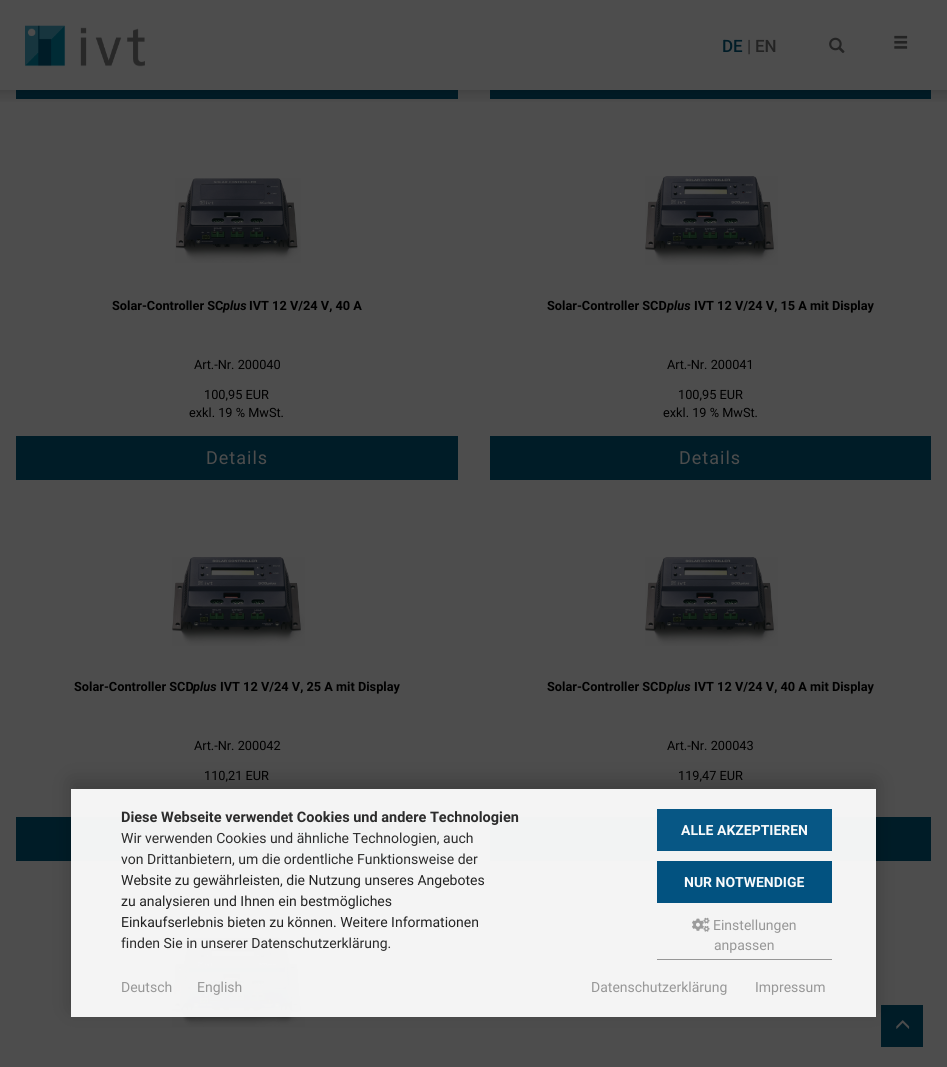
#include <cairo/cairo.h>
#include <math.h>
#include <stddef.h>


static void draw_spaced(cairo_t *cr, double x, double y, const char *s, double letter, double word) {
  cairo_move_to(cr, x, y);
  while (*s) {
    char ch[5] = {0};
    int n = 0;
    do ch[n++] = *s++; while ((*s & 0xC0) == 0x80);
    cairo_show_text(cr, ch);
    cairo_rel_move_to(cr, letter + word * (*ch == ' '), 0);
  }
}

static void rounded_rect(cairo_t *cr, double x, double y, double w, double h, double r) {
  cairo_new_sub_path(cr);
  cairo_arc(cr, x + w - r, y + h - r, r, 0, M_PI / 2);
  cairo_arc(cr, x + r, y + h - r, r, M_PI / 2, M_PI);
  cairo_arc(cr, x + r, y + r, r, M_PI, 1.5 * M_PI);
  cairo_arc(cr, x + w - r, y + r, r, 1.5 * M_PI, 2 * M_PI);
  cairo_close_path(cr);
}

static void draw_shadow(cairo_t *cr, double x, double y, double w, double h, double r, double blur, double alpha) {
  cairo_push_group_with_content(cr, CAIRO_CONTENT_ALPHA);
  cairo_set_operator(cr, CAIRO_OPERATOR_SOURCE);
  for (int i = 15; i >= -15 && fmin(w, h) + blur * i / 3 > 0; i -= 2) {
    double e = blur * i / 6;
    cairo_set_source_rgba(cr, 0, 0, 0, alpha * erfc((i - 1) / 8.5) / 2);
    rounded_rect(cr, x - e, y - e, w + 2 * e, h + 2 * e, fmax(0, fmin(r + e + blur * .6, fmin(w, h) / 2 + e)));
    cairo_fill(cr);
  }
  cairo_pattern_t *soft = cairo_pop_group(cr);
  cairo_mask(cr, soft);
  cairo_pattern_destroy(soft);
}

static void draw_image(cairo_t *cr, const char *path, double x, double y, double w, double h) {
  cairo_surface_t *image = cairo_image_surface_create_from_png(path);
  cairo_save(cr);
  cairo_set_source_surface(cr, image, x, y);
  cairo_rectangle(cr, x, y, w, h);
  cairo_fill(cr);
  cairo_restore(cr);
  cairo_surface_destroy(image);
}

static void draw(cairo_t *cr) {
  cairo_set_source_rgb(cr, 77 / 255.0, 77 / 255.0, 77 / 255.0);
  cairo_paint(cr);
  draw_image(cr, "images/1.png", 25, 25, 120, 42);
  draw_image(cr, "images/2.png", 829, 37, 16, 16);
  draw_image(cr, "images/3.png", 894, 35, 14, 14);
  cairo_set_source_rgb(cr, 0, 28 / 255.0, 39 / 255.0);
  cairo_rectangle(cr, 16, 90, 442, 9);
  cairo_fill(cr);
  cairo_rectangle(cr, 490, 90, 441, 9);
  cairo_fill(cr);
  draw_image(cr, "images/4.png", 0, 90, 947, 12);
  draw_image(cr, "images/5.png", 175, 178, 126, 85);
  cairo_rectangle(cr, 16, 436, 442, 44);
  cairo_fill(cr);
  draw_image(cr, "images/6.png", 645, 176, 133, 89);
  cairo_rectangle(cr, 490, 436, 441, 44);
  cairo_fill(cr);
  draw_image(cr, "images/7.png", 172, 557, 133, 89);
  cairo_rectangle(cr, 16, 817, 442, 44);
  cairo_fill(cr);
  draw_image(cr, "images/6.png", 645, 557, 133, 89);
  cairo_rectangle(cr, 490, 817, 441, 44);
  cairo_fill(cr);
  draw_image(cr, "images/7.png", 172, 938, 133, 89);
  cairo_rectangle(cr, 881, 1005, 42, 42);
  cairo_fill(cr);
  draw_image(cr, "images/9.png", 896, 1020, 14, 9);
  cairo_save(cr);
  cairo_set_fill_rule(cr, CAIRO_FILL_RULE_EVEN_ODD);
  cairo_new_path(cr);
  cairo_move_to(cr, 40, 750);
  cairo_line_to(cr, 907, 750);
  cairo_line_to(cr, 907, 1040);
  cairo_line_to(cr, 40, 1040);
  cairo_close_path(cr);
  cairo_move_to(cr, 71, 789);
  cairo_line_to(cr, 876, 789);
  cairo_line_to(cr, 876, 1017);
  cairo_line_to(cr, 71, 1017);
  cairo_close_path(cr);
  cairo_clip(cr);
  cairo_set_source_rgb(cr, 0, 0, 0);
  draw_shadow(cr, 71, 781, 805, 228, 0, 10, 0.19);
  cairo_restore(cr);
  cairo_set_source_rgba(cr, 249 / 255.0, 249 / 255.0, 249 / 255.0, 0.97);
  cairo_rectangle(cr, 71, 789, 805, 228);
  cairo_fill(cr);
  cairo_set_source_rgb(cr, 7 / 255.0, 87 / 255.0, 133 / 255.0);
  cairo_rectangle(cr, 657, 809, 175, 42);
  cairo_fill(cr);
  cairo_set_source_rgb(cr, 2 / 255.0, 82 / 255.0, 128 / 255.0);
  cairo_rectangle(cr, 657, 861, 175, 42);
  cairo_fill(cr);
  cairo_set_source_rgb(cr, 151 / 255.0, 151 / 255.0, 151 / 255.0);
  cairo_rectangle(cr, 657, 959, 175, 1);
  cairo_fill(cr);
  draw_image(cr, "images/8.png", 692, 917, 18, 15);
  cairo_select_font_face(cr, "Roboto Medium", CAIRO_FONT_SLANT_NORMAL, CAIRO_FONT_WEIGHT_NORMAL);
  cairo_set_font_size(cr, 17);
  cairo_set_source_rgb(cr, 0, 28 / 255.0, 39 / 255.0);
  cairo_move_to(cr, 722, 52);
  cairo_show_text(cr, "DE");
  cairo_select_font_face(cr, "Roboto", CAIRO_FONT_SLANT_NORMAL, CAIRO_FONT_WEIGHT_NORMAL);
  cairo_set_source_rgb(cr, 35 / 255.0, 35 / 255.0, 35 / 255.0);
  cairo_move_to(cr, 747, 52);
  cairo_show_text(cr, "|");
  cairo_select_font_face(cr, "Roboto Medium", CAIRO_FONT_SLANT_NORMAL, CAIRO_FONT_WEIGHT_NORMAL);
  cairo_move_to(cr, 755, 52);
  cairo_show_text(cr, "EN");
  cairo_select_font_face(cr, "Roboto", CAIRO_FONT_SLANT_NORMAL, CAIRO_FONT_WEIGHT_BOLD);
  cairo_set_font_size(cr, 12.75);
  cairo_set_source_rgb(cr, 0, 0, 0);
  cairo_move_to(cr, 112, 310);
  cairo_show_text(cr, "Solar-Controller SC");
  cairo_select_font_face(cr, "Roboto", CAIRO_FONT_SLANT_ITALIC, CAIRO_FONT_WEIGHT_BOLD);
  cairo_move_to(cr, 223, 310);
  cairo_show_text(cr, "plus");
  cairo_select_font_face(cr, "Roboto", CAIRO_FONT_SLANT_NORMAL, CAIRO_FONT_WEIGHT_BOLD);
  cairo_move_to(cr, 249, 310);
  cairo_show_text(cr, "IVT 12 V/24 V, 40 A");
  cairo_select_font_face(cr, "Roboto", CAIRO_FONT_SLANT_NORMAL, CAIRO_FONT_WEIGHT_NORMAL);
  cairo_move_to(cr, 194, 369);
  cairo_show_text(cr, "Art.-Nr. 200040");
  cairo_move_to(cr, 204, 399);
  cairo_show_text(cr, "100,95 EUR");
  cairo_move_to(cr, 189, 417);
  cairo_show_text(cr, "exkl. 19 % MwSt.");
  cairo_set_font_size(cr, 18);
  cairo_set_source_rgb(cr, 77 / 255.0, 77 / 255.0, 77 / 255.0);
  draw_spaced(cr, 206, 464, "Details", 1, 0);
  cairo_select_font_face(cr, "Roboto", CAIRO_FONT_SLANT_NORMAL, CAIRO_FONT_WEIGHT_BOLD);
  cairo_set_font_size(cr, 12.75);
  cairo_set_source_rgb(cr, 0, 0, 0);
  cairo_move_to(cr, 547, 310);
  cairo_show_text(cr, "Solar-Controller SCD");
  cairo_select_font_face(cr, "Roboto", CAIRO_FONT_SLANT_ITALIC, CAIRO_FONT_WEIGHT_BOLD);
  cairo_move_to(cr, 667, 310);
  cairo_show_text(cr, "plus");
  cairo_select_font_face(cr, "Roboto", CAIRO_FONT_SLANT_NORMAL, CAIRO_FONT_WEIGHT_BOLD);
  cairo_move_to(cr, 694, 310);
  cairo_show_text(cr, "IVT 12 V/24 V, 15 A mit Display");
  cairo_select_font_face(cr, "Roboto", CAIRO_FONT_SLANT_NORMAL, CAIRO_FONT_WEIGHT_NORMAL);
  cairo_move_to(cr, 667, 369);
  cairo_show_text(cr, "Art.-Nr. 200041");
  cairo_move_to(cr, 678, 399);
  cairo_show_text(cr, "100,95 EUR");
  cairo_move_to(cr, 663, 417);
  cairo_show_text(cr, "exkl. 19 % MwSt.");
  cairo_set_font_size(cr, 18);
  cairo_set_source_rgb(cr, 77 / 255.0, 77 / 255.0, 77 / 255.0);
  draw_spaced(cr, 679, 464, "Details", 1, 0);
  cairo_select_font_face(cr, "Roboto", CAIRO_FONT_SLANT_NORMAL, CAIRO_FONT_WEIGHT_BOLD);
  cairo_set_font_size(cr, 12.75);
  cairo_set_source_rgb(cr, 0, 0, 0);
  cairo_move_to(cr, 74, 691);
  cairo_show_text(cr, "Solar-Controller SCD");
  cairo_select_font_face(cr, "Roboto", CAIRO_FONT_SLANT_ITALIC, CAIRO_FONT_WEIGHT_BOLD);
  cairo_move_to(cr, 193, 691);
  cairo_show_text(cr, "plus");
  cairo_select_font_face(cr, "Roboto", CAIRO_FONT_SLANT_NORMAL, CAIRO_FONT_WEIGHT_BOLD);
  cairo_move_to(cr, 220, 691);
  cairo_show_text(cr, "IVT 12 V/24 V, 25 A mit Display");
  cairo_select_font_face(cr, "Roboto", CAIRO_FONT_SLANT_NORMAL, CAIRO_FONT_WEIGHT_NORMAL);
  cairo_move_to(cr, 194, 750);
  cairo_show_text(cr, "Art.-Nr. 200042");
  cairo_move_to(cr, 204, 780);
  cairo_show_text(cr, "110,21 EUR");
  cairo_select_font_face(cr, "Roboto", CAIRO_FONT_SLANT_NORMAL, CAIRO_FONT_WEIGHT_BOLD);
  cairo_move_to(cr, 547, 691);
  cairo_show_text(cr, "Solar-Controller SCD");
  cairo_select_font_face(cr, "Roboto", CAIRO_FONT_SLANT_ITALIC, CAIRO_FONT_WEIGHT_BOLD);
  cairo_move_to(cr, 667, 691);
  cairo_show_text(cr, "plus");
  cairo_select_font_face(cr, "Roboto", CAIRO_FONT_SLANT_NORMAL, CAIRO_FONT_WEIGHT_BOLD);
  cairo_move_to(cr, 694, 691);
  cairo_show_text(cr, "IVT 12 V/24 V, 40 A mit Display");
  cairo_select_font_face(cr, "Roboto", CAIRO_FONT_SLANT_NORMAL, CAIRO_FONT_WEIGHT_NORMAL);
  cairo_move_to(cr, 667, 750);
  cairo_show_text(cr, "Art.-Nr. 200043");
  cairo_move_to(cr, 678, 780);
  cairo_show_text(cr, "119,47 EUR");
  cairo_select_font_face(cr, "Roboto", CAIRO_FONT_SLANT_NORMAL, CAIRO_FONT_WEIGHT_BOLD);
  cairo_set_font_size(cr, 14.5);
  cairo_set_source_rgb(cr, 44 / 255.0, 44 / 255.0, 44 / 255.0);
  cairo_move_to(cr, 121, 822);
  cairo_show_text(cr, "Diese Webseite verwendet Cookies und andere Technologien");
  cairo_select_font_face(cr, "Roboto", CAIRO_FONT_SLANT_NORMAL, CAIRO_FONT_WEIGHT_NORMAL);
  cairo_set_font_size(cr, 14);
  cairo_move_to(cr, 121, 843);
  cairo_show_text(cr, "Wir verwenden Cookies und ähnliche Technologien, auch");
  cairo_move_to(cr, 121, 864);
  cairo_show_text(cr, "von Drittanbietern, um die ordentliche Funktionsweise der");
  cairo_set_source_rgb(cr, 35 / 255.0, 35 / 255.0, 35 / 255.0);
  cairo_move_to(cr, 121, 885);
  cairo_show_text(cr, "Website zu gewährleisten, die Nutzung unseres Angebotes");
  cairo_move_to(cr, 121, 906);
  cairo_show_text(cr, "zu analysieren und Ihnen ein bestmögliches");
  cairo_move_to(cr, 121, 927);
  cairo_show_text(cr, "Einkaufserlebnis bieten zu können. Weitere Informationen");
  cairo_set_source_rgb(cr, 44 / 255.0, 44 / 255.0, 44 / 255.0);
  cairo_move_to(cr, 121, 948);
  cairo_show_text(cr, "finden Sie in unserer Datenschutzerklärung.");
  cairo_select_font_face(cr, "Roboto", CAIRO_FONT_SLANT_NORMAL, CAIRO_FONT_WEIGHT_BOLD);
  cairo_set_source_rgb(cr, 248 / 255.0, 250 / 255.0, 251 / 255.0);
  cairo_move_to(cr, 681, 835);
  cairo_show_text(cr, "ALLE AKZEPTIEREN");
  cairo_move_to(cr, 684, 887);
  cairo_show_text(cr, "NUR NOTWENDIGE");
  cairo_select_font_face(cr, "Roboto", CAIRO_FONT_SLANT_NORMAL, CAIRO_FONT_WEIGHT_NORMAL);
  cairo_set_source_rgb(cr, 151 / 255.0, 151 / 255.0, 151 / 255.0);
  cairo_move_to(cr, 713, 930);
  cairo_show_text(cr, "Einstellungen");
  cairo_move_to(cr, 714, 950);
  cairo_show_text(cr, "anpassen");
  cairo_move_to(cr, 121, 992);
  cairo_show_text(cr, "Deutsch");
  cairo_move_to(cr, 197, 992);
  cairo_show_text(cr, "English");
  cairo_move_to(cr, 591, 992);
  cairo_show_text(cr, "Datenschutzerklärung");
  cairo_move_to(cr, 755, 992);
  cairo_show_text(cr, "Impressum");
}

int main(void) {
  cairo_surface_t *surface = cairo_image_surface_create(CAIRO_FORMAT_RGB24, 947, 1067);
  cairo_t *cr = cairo_create(surface);
  cairo_font_options_t *options = cairo_font_options_create();
  cairo_font_options_set_hint_metrics(options, CAIRO_HINT_METRICS_OFF);
  cairo_font_options_set_hint_style(options, CAIRO_HINT_STYLE_NONE);
  cairo_set_font_options(cr, options);
  cairo_set_miter_limit(cr, 4);
  draw(cr);
  cairo_surface_write_to_png(surface, "out.png");
  cairo_font_options_destroy(options);
  cairo_destroy(cr);
  cairo_surface_destroy(surface);
  return 0;
}
